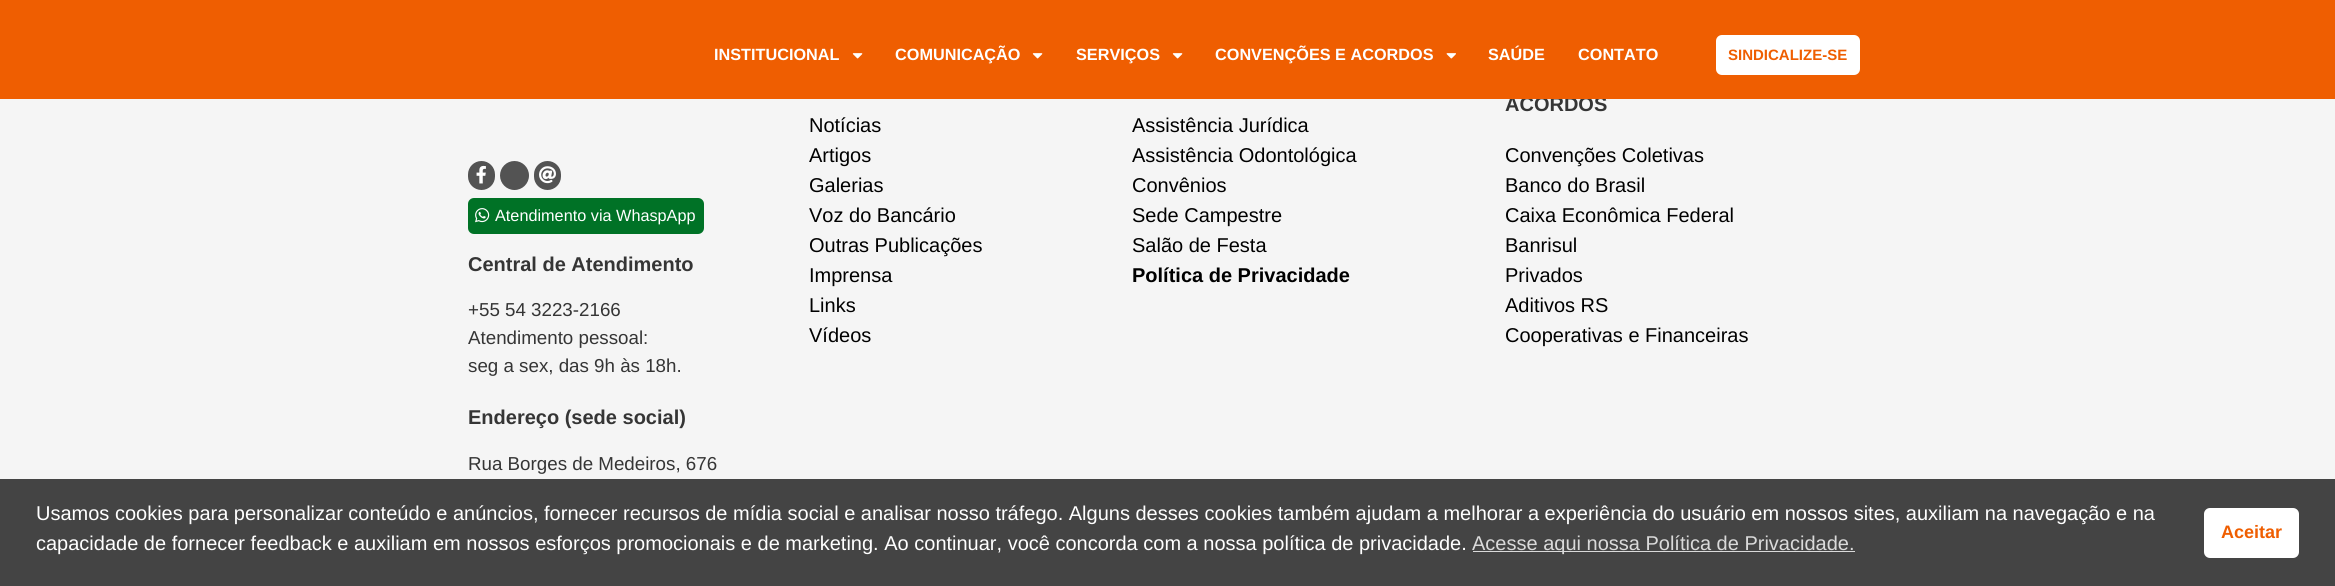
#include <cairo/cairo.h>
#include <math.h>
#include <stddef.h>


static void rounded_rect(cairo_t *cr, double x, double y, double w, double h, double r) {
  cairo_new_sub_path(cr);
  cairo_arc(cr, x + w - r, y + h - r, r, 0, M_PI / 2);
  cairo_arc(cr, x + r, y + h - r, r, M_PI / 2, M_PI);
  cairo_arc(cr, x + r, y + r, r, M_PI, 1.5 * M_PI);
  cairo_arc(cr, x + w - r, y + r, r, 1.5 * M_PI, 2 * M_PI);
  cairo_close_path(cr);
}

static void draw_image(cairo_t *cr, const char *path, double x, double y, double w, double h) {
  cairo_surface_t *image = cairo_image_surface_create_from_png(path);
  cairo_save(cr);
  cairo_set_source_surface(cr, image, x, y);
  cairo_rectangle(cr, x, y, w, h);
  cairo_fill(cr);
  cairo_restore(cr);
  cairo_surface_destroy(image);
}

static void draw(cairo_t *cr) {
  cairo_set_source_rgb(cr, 245 / 255.0, 245 / 255.0, 245 / 255.0);
  cairo_paint(cr);
  cairo_set_source_rgb(cr, 83 / 255.0, 83 / 255.0, 83 / 255.0);
  rounded_rect(cr, 468, 161, 27, 29, 13.5);
  cairo_fill(cr);
  draw_image(cr, "images/3.png", 476, 165, 10, 19);
  cairo_arc(cr, 514.5, 175.5, 14.5, 0, 2 * M_PI);
  cairo_fill(cr);
  rounded_rect(cr, 534, 161, 27, 29, 13.5);
  cairo_fill(cr);
  draw_image(cr, "images/4.png", 539, 166, 17, 18);
  cairo_set_source_rgb(cr, 0, 114 / 255.0, 38 / 255.0);
  rounded_rect(cr, 468, 198, 236, 36, 6);
  cairo_fill(cr);
  draw_image(cr, "images/5.png", 475, 208, 15, 15);
  cairo_set_source_rgb(cr, 68 / 255.0, 68 / 255.0, 68 / 255.0);
  cairo_rectangle(cr, 0, 479, 2335, 107);
  cairo_fill(cr);
  cairo_set_source_rgb(cr, 218 / 255.0, 218 / 255.0, 218 / 255.0);
  cairo_rectangle(cr, 1473, 551, 382, 1);
  cairo_fill(cr);
  cairo_set_source_rgb(cr, 1, 1, 1);
  rounded_rect(cr, 2204, 508, 95, 50, 6);
  cairo_fill(cr);
  cairo_select_font_face(cr, "Liberation Sans", CAIRO_FONT_SLANT_NORMAL, CAIRO_FONT_WEIGHT_NORMAL);
  cairo_set_font_size(cr, 16.25);
  cairo_move_to(cr, 495, 221);
  cairo_show_text(cr, "Atendimento via WhaspApp");
  cairo_select_font_face(cr, "Liberation Sans", CAIRO_FONT_SLANT_NORMAL, CAIRO_FONT_WEIGHT_BOLD);
  cairo_set_font_size(cr, 20);
  cairo_set_source_rgb(cr, 53 / 255.0, 53 / 255.0, 53 / 255.0);
  cairo_move_to(cr, 468, 271);
  cairo_show_text(cr, "Central de Atendimento");
  cairo_select_font_face(cr, "Liberation Sans", CAIRO_FONT_SLANT_NORMAL, CAIRO_FONT_WEIGHT_NORMAL);
  cairo_set_font_size(cr, 18.75);
  cairo_move_to(cr, 468, 316);
  cairo_show_text(cr, "+55 54 3223-2166");
  cairo_move_to(cr, 468, 344);
  cairo_show_text(cr, "Atendimento pessoal:");
  cairo_move_to(cr, 468, 372);
  cairo_show_text(cr, "seg a sex, das 9h às 18h.");
  cairo_select_font_face(cr, "Liberation Sans", CAIRO_FONT_SLANT_NORMAL, CAIRO_FONT_WEIGHT_BOLD);
  cairo_set_font_size(cr, 20);
  cairo_move_to(cr, 468, 424);
  cairo_show_text(cr, "Endereço (sede social)");
  cairo_select_font_face(cr, "Liberation Sans", CAIRO_FONT_SLANT_NORMAL, CAIRO_FONT_WEIGHT_NORMAL);
  cairo_set_font_size(cr, 18.75);
  cairo_move_to(cr, 468, 470);
  cairo_show_text(cr, "Rua Borges de Medeiros, 676");
  cairo_set_font_size(cr, 20);
  cairo_set_source_rgb(cr, 0, 0, 0);
  cairo_move_to(cr, 809, 132);
  cairo_show_text(cr, "Notícias");
  cairo_move_to(cr, 809, 162);
  cairo_show_text(cr, "Artigos");
  cairo_move_to(cr, 809, 192);
  cairo_show_text(cr, "Galerias");
  cairo_move_to(cr, 809, 222);
  cairo_show_text(cr, "Voz do Bancário");
  cairo_move_to(cr, 809, 252);
  cairo_show_text(cr, "Outras Publicações");
  cairo_move_to(cr, 809, 282);
  cairo_show_text(cr, "Imprensa");
  cairo_move_to(cr, 809, 312);
  cairo_show_text(cr, "Links");
  cairo_move_to(cr, 809, 342);
  cairo_show_text(cr, "Vídeos");
  cairo_move_to(cr, 1132, 132);
  cairo_show_text(cr, "Assistência Jurídica");
  cairo_move_to(cr, 1132, 162);
  cairo_show_text(cr, "Assistência Odontológica");
  cairo_move_to(cr, 1132, 192);
  cairo_show_text(cr, "Convênios");
  cairo_move_to(cr, 1132, 222);
  cairo_show_text(cr, "Sede Campestre");
  cairo_move_to(cr, 1132, 252);
  cairo_show_text(cr, "Salão de Festa");
  cairo_select_font_face(cr, "Liberation Sans", CAIRO_FONT_SLANT_NORMAL, CAIRO_FONT_WEIGHT_BOLD);
  cairo_move_to(cr, 1132, 282);
  cairo_show_text(cr, "Política de Privacidade");
  cairo_set_source_rgb(cr, 53 / 255.0, 53 / 255.0, 53 / 255.0);
  cairo_move_to(cr, 1505, 111);
  cairo_show_text(cr, "ACORDOS");
  cairo_set_source_rgb(cr, 239 / 255.0, 94 / 255.0, 1 / 255.0);
  cairo_rectangle(cr, 0, 0, 2335, 99);
  cairo_fill(cr);
  cairo_set_font_size(cr, 16.25);
  cairo_set_source_rgb(cr, 1, 1, 1);
  cairo_move_to(cr, 1578, 60);
  cairo_show_text(cr, "CONTATO");
  cairo_move_to(cr, 1488, 60);
  cairo_show_text(cr, "SAÚDE");
  draw_image(cr, "images/2.png", 1446, 53, 10, 6);
  cairo_move_to(cr, 1215, 60);
  cairo_show_text(cr, "CONVENÇÕES E ACORDOS");
  draw_image(cr, "images/1.png", 1172, 53, 11, 6);
  cairo_move_to(cr, 1076, 60);
  cairo_show_text(cr, "SERVIÇOS");
  draw_image(cr, "images/1.png", 1032, 53, 11, 6);
  cairo_move_to(cr, 895, 60);
  cairo_show_text(cr, "COMUNICAÇÃO");
  draw_image(cr, "images/1.png", 852, 53, 11, 6);
  cairo_move_to(cr, 714, 60);
  cairo_show_text(cr, "INSTITUCIONAL");
  rounded_rect(cr, 1716, 35, 144, 40, 6);
  cairo_fill(cr);
  cairo_set_font_size(cr, 15);
  cairo_set_source_rgb(cr, 239 / 255.0, 94 / 255.0, 1 / 255.0);
  cairo_move_to(cr, 1728, 60);
  cairo_show_text(cr, "SINDICALIZE-SE");
  cairo_select_font_face(cr, "Liberation Sans", CAIRO_FONT_SLANT_NORMAL, CAIRO_FONT_WEIGHT_NORMAL);
  cairo_set_font_size(cr, 20);
  cairo_set_source_rgb(cr, 0, 0, 0);
  cairo_move_to(cr, 1505, 162);
  cairo_show_text(cr, "Convenções Coletivas");
  cairo_move_to(cr, 1505, 192);
  cairo_show_text(cr, "Banco do Brasil");
  cairo_move_to(cr, 1505, 222);
  cairo_show_text(cr, "Caixa Econômica Federal");
  cairo_move_to(cr, 1505, 252);
  cairo_show_text(cr, "Banrisul");
  cairo_move_to(cr, 1505, 282);
  cairo_show_text(cr, "Privados");
  cairo_move_to(cr, 1505, 312);
  cairo_show_text(cr, "Aditivos RS");
  cairo_move_to(cr, 1505, 342);
  cairo_show_text(cr, "Cooperativas e Financeiras");
  cairo_set_source_rgb(cr, 1, 1, 1);
  cairo_move_to(cr, 36, 520);
  cairo_show_text(cr, "Usamos cookies para personalizar conteúdo e anúncios, fornecer recursos de mídia social e analisar nosso tráfego. Alguns desses cookies também ajudam a melhorar a experiência do usuário em nossos sites, auxiliam na navegação e na");
  cairo_move_to(cr, 36, 550);
  cairo_show_text(cr, "capacidade de fornecer feedback e auxiliam em nossos esforços promocionais e de marketing. Ao continuar, você concorda com a nossa política de privacidade.");
  cairo_set_source_rgb(cr, 218 / 255.0, 218 / 255.0, 218 / 255.0);
  cairo_move_to(cr, 1472, 550);
  cairo_show_text(cr, "Acesse aqui nossa Política de Privacidade.");
  cairo_select_font_face(cr, "Liberation Sans", CAIRO_FONT_SLANT_NORMAL, CAIRO_FONT_WEIGHT_BOLD);
  cairo_set_font_size(cr, 18);
  cairo_set_source_rgb(cr, 239 / 255.0, 94 / 255.0, 1 / 255.0);
  cairo_move_to(cr, 2221, 538);
  cairo_show_text(cr, "Aceitar");
}

int main(void) {
  cairo_surface_t *surface = cairo_image_surface_create(CAIRO_FORMAT_RGB24, 2335, 586);
  cairo_t *cr = cairo_create(surface);
  cairo_font_options_t *options = cairo_font_options_create();
  cairo_font_options_set_hint_metrics(options, CAIRO_HINT_METRICS_OFF);
  cairo_font_options_set_hint_style(options, CAIRO_HINT_STYLE_NONE);
  cairo_set_font_options(cr, options);
  cairo_set_miter_limit(cr, 4);
  draw(cr);
  cairo_surface_write_to_png(surface, "out.png");
  cairo_font_options_destroy(options);
  cairo_destroy(cr);
  cairo_surface_destroy(surface);
  return 0;
}
